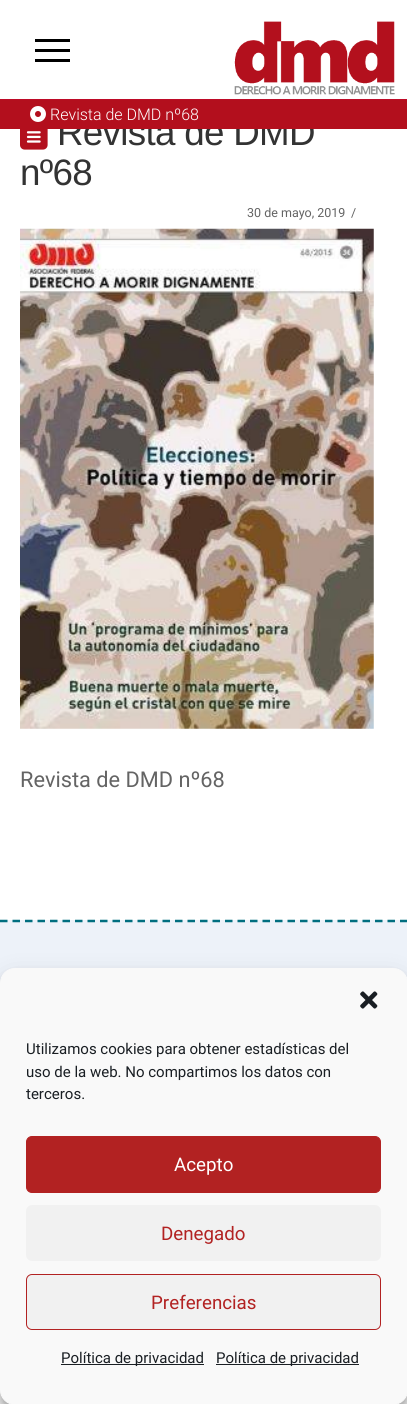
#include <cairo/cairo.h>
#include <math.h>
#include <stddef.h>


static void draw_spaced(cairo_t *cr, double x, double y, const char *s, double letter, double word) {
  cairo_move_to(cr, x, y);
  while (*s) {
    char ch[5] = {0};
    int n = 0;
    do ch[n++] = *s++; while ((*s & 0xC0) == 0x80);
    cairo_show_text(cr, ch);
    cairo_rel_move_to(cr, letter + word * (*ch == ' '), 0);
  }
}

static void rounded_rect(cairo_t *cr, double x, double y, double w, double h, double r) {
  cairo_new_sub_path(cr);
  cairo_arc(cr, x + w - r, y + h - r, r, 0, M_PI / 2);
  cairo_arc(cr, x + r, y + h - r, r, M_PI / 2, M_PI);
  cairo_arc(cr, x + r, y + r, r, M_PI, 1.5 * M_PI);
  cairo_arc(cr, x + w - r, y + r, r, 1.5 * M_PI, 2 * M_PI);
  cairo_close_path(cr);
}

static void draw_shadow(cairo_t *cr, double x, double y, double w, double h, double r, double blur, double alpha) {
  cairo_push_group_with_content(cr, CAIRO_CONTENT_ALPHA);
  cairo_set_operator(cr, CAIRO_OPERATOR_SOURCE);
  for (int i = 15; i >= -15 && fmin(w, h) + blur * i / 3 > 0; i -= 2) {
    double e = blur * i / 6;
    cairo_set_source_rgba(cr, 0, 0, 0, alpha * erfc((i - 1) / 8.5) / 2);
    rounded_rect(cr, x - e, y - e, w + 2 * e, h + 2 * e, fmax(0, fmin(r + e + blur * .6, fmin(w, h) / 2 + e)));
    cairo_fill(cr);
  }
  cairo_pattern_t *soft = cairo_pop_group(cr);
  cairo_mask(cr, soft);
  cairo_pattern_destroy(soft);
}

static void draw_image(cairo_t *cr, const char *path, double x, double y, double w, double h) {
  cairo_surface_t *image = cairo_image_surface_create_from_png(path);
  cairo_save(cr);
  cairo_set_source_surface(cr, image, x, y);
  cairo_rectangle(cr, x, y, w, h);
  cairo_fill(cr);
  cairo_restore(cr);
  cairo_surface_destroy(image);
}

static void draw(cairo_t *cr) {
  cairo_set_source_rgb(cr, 1, 1, 1);
  cairo_paint(cr);
  cairo_set_source_rgb(cr, 190 / 255.0, 10 / 255.0, 39 / 255.0);
  cairo_rectangle(cr, 0, 99, 407, 1);
  cairo_fill(cr);
  cairo_set_source_rgb(cr, 0, 0, 0);
  cairo_rectangle(cr, 35, 39, 35, 3);
  cairo_fill(cr);
  cairo_rectangle(cr, 35, 49, 35, 3);
  cairo_fill(cr);
  cairo_rectangle(cr, 35, 59, 35, 3);
  cairo_fill(cr);
  draw_image(cr, "images/1.png", 234, 21, 161, 74);
  draw_image(cr, "images/3.png", 20, 129, 28, 21);
  draw_image(cr, "images/4.png", 20, 228, 354, 501);
  cairo_set_source_rgb(cr, 237 / 255.0, 242 / 255.0, 249 / 255.0);
  cairo_rectangle(cr, 0, 920, 407, 63);
  cairo_fill(cr);
  cairo_new_path(cr);
  cairo_move_to(cr, 0, 921);
  cairo_line_to(cr, 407.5, 921);
  cairo_set_source_rgb(cr, 0, 110 / 255.0, 127 / 255.0);
  cairo_set_line_width(cr, 2.5);
  cairo_set_dash(cr, (double[]){7.5, 5}, 2, 0);
  cairo_stroke(cr);
  cairo_set_source_rgb(cr, 0, 0, 0);
  draw_shadow(cr, 0, 975, 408, 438, 15, 4, 0.23);
  draw_shadow(cr, 0, 980, 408, 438, 15, 12.5, 0.19);
  cairo_set_source_rgb(cr, 249 / 255.0, 249 / 255.0, 249 / 255.0);
  rounded_rect(cr, 0.5, 968.5, 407, 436, 14.5);
  cairo_fill_preserve(cr);
  cairo_set_line_width(cr, 1);
  cairo_set_dash(cr, NULL, 0, 0);
  cairo_stroke(cr);
  draw_image(cr, "images/5.png", 360, 991, 18, 18);
  cairo_set_source_rgb(cr, 178 / 255.0, 34 / 255.0, 34 / 255.0);
  rounded_rect(cr, 26.5, 1136.5, 354, 56, 5.5);
  cairo_fill_preserve(cr);
  cairo_stroke(cr);
  cairo_set_source_rgb(cr, 241 / 255.0, 241 / 255.0, 241 / 255.0);
  rounded_rect(cr, 26, 1205, 355, 56, 6);
  cairo_fill(cr);
  rounded_rect(cr, 26.5, 1274.5, 354, 55, 5.5);
  cairo_fill_preserve(cr);
  cairo_set_source_rgb(cr, 178 / 255.0, 34 / 255.0, 34 / 255.0);
  cairo_stroke(cr);
  cairo_set_source_rgb(cr, 25 / 255.0, 30 / 255.0, 35 / 255.0);
  cairo_rectangle(cr, 61, 1364, 143, 1);
  cairo_fill(cr);
  cairo_rectangle(cr, 216, 1364, 143, 1);
  cairo_fill(cr);
  cairo_select_font_face(cr, "Liberation Sans", CAIRO_FONT_SLANT_NORMAL, CAIRO_FONT_WEIGHT_NORMAL);
  cairo_set_font_size(cr, 36.75);
  cairo_set_source_rgb(cr, 51 / 255.0, 51 / 255.0, 51 / 255.0);
  draw_spaced(cr, 57, 145, "Revista de DMD", -0.7, 0);
  cairo_set_source_rgb(cr, 179 / 255.0, 15 / 255.0, 29 / 255.0);
  cairo_rectangle(cr, 0, 100, 407, 29);
  cairo_fill(cr);
  cairo_select_font_face(cr, "Roboto Light", CAIRO_FONT_SLANT_NORMAL, CAIRO_FONT_WEIGHT_NORMAL);
  cairo_set_font_size(cr, 16);
  cairo_set_source_rgb(cr, 1, 1, 1);
  cairo_move_to(cr, 50, 120);
  cairo_show_text(cr, "Revista de DMD nº68");
  draw_image(cr, "images/2.png", 30, 106, 16, 16);
  cairo_select_font_face(cr, "Liberation Sans", CAIRO_FONT_SLANT_NORMAL, CAIRO_FONT_WEIGHT_NORMAL);
  cairo_set_font_size(cr, 36.75);
  cairo_set_source_rgb(cr, 51 / 255.0, 51 / 255.0, 51 / 255.0);
  draw_spaced(cr, 20, 185, "nº68", -0.7, 0);
  cairo_select_font_face(cr, "Roboto", CAIRO_FONT_SLANT_NORMAL, CAIRO_FONT_WEIGHT_NORMAL);
  cairo_set_font_size(cr, 12.5);
  cairo_set_source_rgb(cr, 100 / 255.0, 100 / 255.0, 100 / 255.0);
  cairo_move_to(cr, 247, 217);
  cairo_show_text(cr, "30 de mayo, 2019");
  cairo_move_to(cr, 351, 217);
  cairo_show_text(cr, "/");
  cairo_set_font_size(cr, 21.75);
  cairo_move_to(cr, 20, 787);
  cairo_show_text(cr, "Revista de DMD nº68");
  cairo_set_font_size(cr, 15);
  cairo_set_source_rgb(cr, 25 / 255.0, 30 / 255.0, 35 / 255.0);
  cairo_move_to(cr, 26, 1054);
  cairo_show_text(cr, "Utilizamos cookies para obtener estadísticas del");
  cairo_move_to(cr, 26, 1077);
  cairo_show_text(cr, "uso de la web. No compartimos los datos con");
  cairo_move_to(cr, 26, 1099);
  cairo_show_text(cr, "terceros.");
  cairo_set_font_size(cr, 18.75);
  cairo_set_source_rgb(cr, 1, 1, 1);
  cairo_move_to(cr, 174, 1171);
  cairo_show_text(cr, "Acepto");
  cairo_set_source_rgb(cr, 178 / 255.0, 34 / 255.0, 34 / 255.0);
  cairo_move_to(cr, 161, 1240);
  cairo_show_text(cr, "Denegado");
  cairo_move_to(cr, 151, 1309);
  cairo_show_text(cr, "Preferencias");
  cairo_set_font_size(cr, 15);
  cairo_set_source_rgb(cr, 25 / 255.0, 30 / 255.0, 35 / 255.0);
  cairo_move_to(cr, 61, 1363);
  cairo_show_text(cr, "Política de privacidad");
  cairo_move_to(cr, 216, 1363);
  cairo_show_text(cr, "Política de privacidad");
}

int main(void) {
  cairo_surface_t *surface = cairo_image_surface_create(CAIRO_FORMAT_RGB24, 407, 1404);
  cairo_t *cr = cairo_create(surface);
  cairo_font_options_t *options = cairo_font_options_create();
  cairo_font_options_set_hint_metrics(options, CAIRO_HINT_METRICS_OFF);
  cairo_font_options_set_hint_style(options, CAIRO_HINT_STYLE_NONE);
  cairo_set_font_options(cr, options);
  cairo_set_miter_limit(cr, 4);
  draw(cr);
  cairo_surface_write_to_png(surface, "out.png");
  cairo_font_options_destroy(options);
  cairo_destroy(cr);
  cairo_surface_destroy(surface);
  return 0;
}
